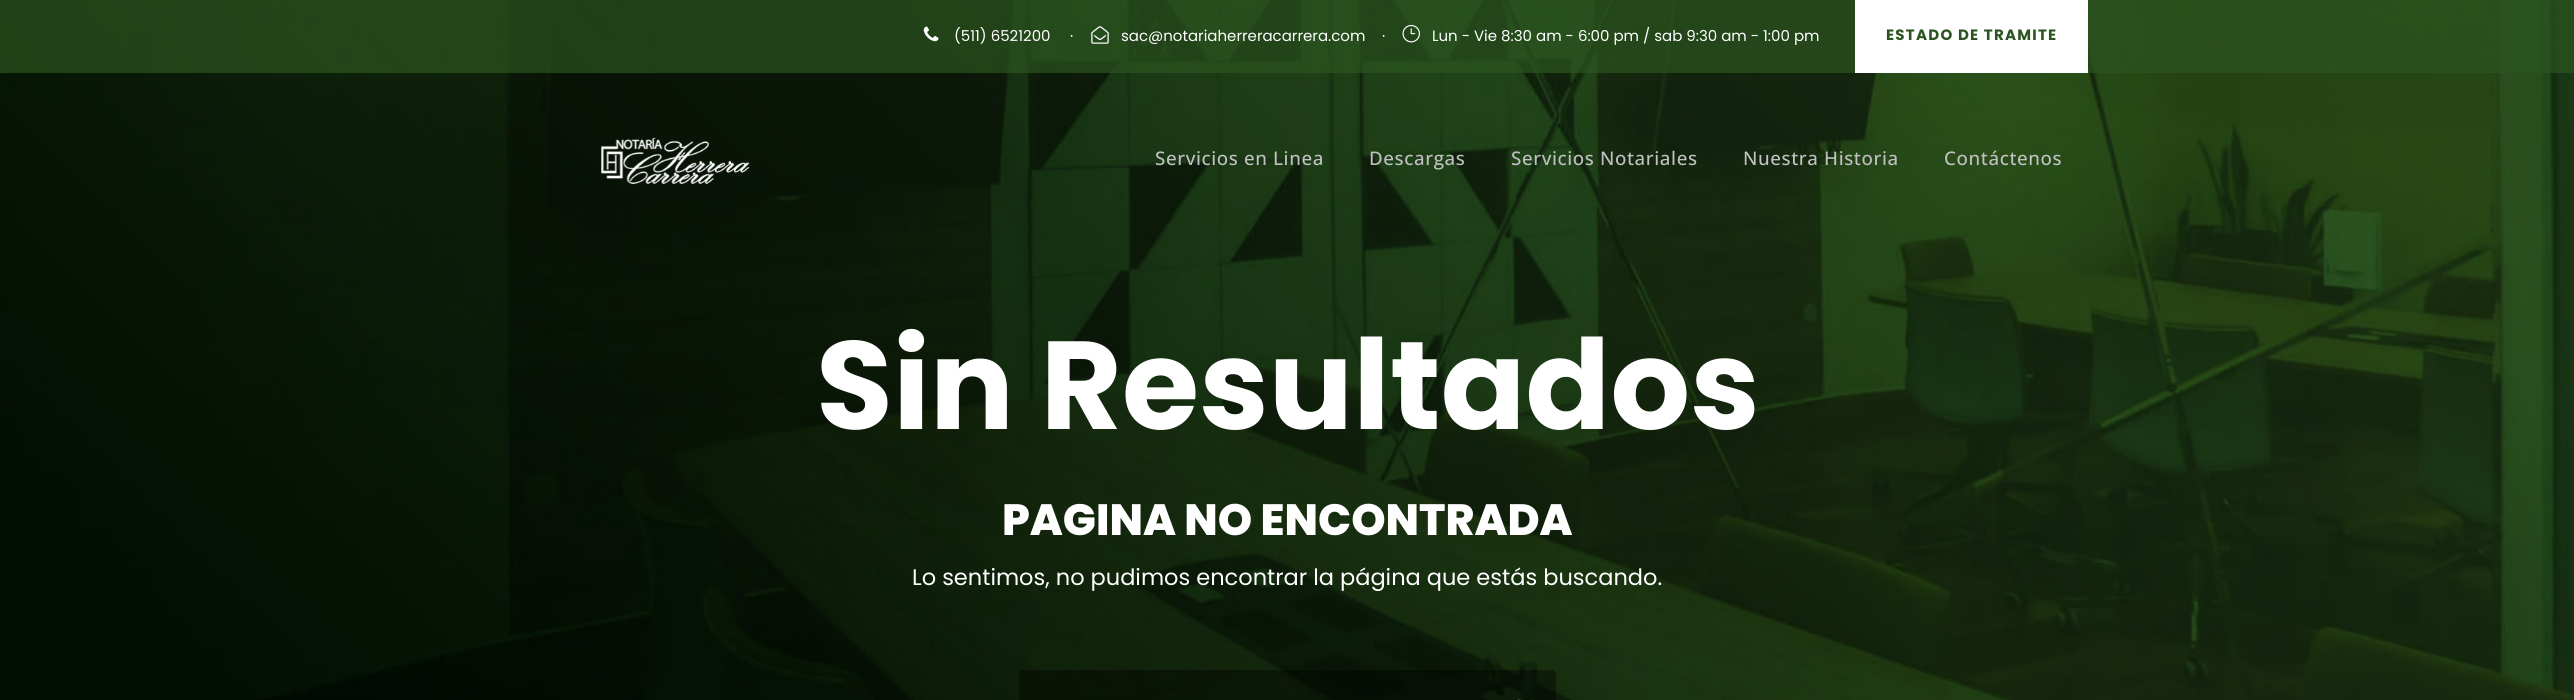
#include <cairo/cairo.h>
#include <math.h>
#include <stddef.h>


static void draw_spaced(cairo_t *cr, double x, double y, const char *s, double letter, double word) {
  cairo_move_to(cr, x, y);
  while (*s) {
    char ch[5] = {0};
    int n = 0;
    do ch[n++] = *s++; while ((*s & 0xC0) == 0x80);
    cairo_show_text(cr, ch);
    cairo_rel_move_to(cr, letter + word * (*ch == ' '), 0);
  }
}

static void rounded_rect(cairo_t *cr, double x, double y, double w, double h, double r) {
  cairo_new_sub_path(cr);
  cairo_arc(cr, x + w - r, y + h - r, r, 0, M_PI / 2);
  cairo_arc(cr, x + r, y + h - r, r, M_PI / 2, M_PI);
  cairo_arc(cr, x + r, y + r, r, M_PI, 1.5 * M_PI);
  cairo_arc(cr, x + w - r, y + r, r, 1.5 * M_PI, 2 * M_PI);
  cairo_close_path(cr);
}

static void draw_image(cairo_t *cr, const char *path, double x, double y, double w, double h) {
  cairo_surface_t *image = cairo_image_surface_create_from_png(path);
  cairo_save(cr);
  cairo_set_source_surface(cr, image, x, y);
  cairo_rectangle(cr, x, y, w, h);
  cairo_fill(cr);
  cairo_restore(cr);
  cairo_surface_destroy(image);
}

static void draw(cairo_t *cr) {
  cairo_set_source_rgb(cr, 1, 1, 1);
  cairo_paint(cr);
  draw_image(cr, "images/5.png", 0, 0, 2574, 700);
  cairo_set_source_rgba(cr, 44 / 255.0, 84 / 255.0, 32 / 255.0, 0.7);
  cairo_rectangle(cr, 0, 0, 2574, 73);
  cairo_fill(cr);
  draw_image(cr, "images/1.png", 923, 26, 16, 16);
  draw_image(cr, "images/2.png", 1091, 26, 18, 18);
  draw_image(cr, "images/3.png", 1402, 24, 18, 19);
  cairo_set_source_rgb(cr, 1, 1, 1);
  cairo_rectangle(cr, 1855, 0, 233, 73);
  cairo_fill(cr);
  draw_image(cr, "images/4.png", 601, 137, 149, 47);
  cairo_set_source_rgba(cr, 0, 0, 0, 0.4);
  rounded_rect(cr, 1019, 670, 537, 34, 4);
  cairo_fill(cr);
  draw_image(cr, "images/6.png", 1517, 699, 4, 1);
  cairo_select_font_face(cr, "Poppins", CAIRO_FONT_SLANT_NORMAL, CAIRO_FONT_WEIGHT_NORMAL);
  cairo_set_font_size(cr, 15);
  cairo_set_source_rgb(cr, 1, 1, 1);
  cairo_move_to(cr, 954, 41);
  cairo_show_text(cr, "(511) 6521200");
  cairo_move_to(cr, 1070, 41);
  cairo_show_text(cr, "·");
  cairo_move_to(cr, 1121, 41);
  cairo_show_text(cr, "sac@notariaherreracarrera.com");
  cairo_move_to(cr, 1382, 41);
  cairo_show_text(cr, "·");
  cairo_move_to(cr, 1432, 41);
  cairo_show_text(cr, "Lun - Vie 8:30 am - 6:00 pm / sab 9:30 am - 1:00 pm");
  cairo_select_font_face(cr, "Poppins", CAIRO_FONT_SLANT_NORMAL, CAIRO_FONT_WEIGHT_BOLD);
  cairo_set_source_rgb(cr, 44 / 255.0, 84 / 255.0, 32 / 255.0);
  draw_spaced(cr, 1886, 40, "ESTADO DE TRAMITE", 1.25, 0);
  cairo_select_font_face(cr, "Open Sans Medium", CAIRO_FONT_SLANT_NORMAL, CAIRO_FONT_WEIGHT_NORMAL);
  cairo_set_font_size(cr, 18.75);
  cairo_set_source_rgb(cr, 193 / 255.0, 193 / 255.0, 193 / 255.0);
  draw_spaced(cr, 1155, 165, "Servicios en Linea", 0.6, 0);
  draw_spaced(cr, 1369, 165, "Descargas", 0.6, 0);
  draw_spaced(cr, 1511, 165, "Servicios Notariales", 0.6, 0);
  draw_spaced(cr, 1743, 165, "Nuestra Historia", 0.6, 0);
  draw_spaced(cr, 1944, 165, "Contáctenos", 0.6, 0);
  cairo_select_font_face(cr, "Poppins", CAIRO_FONT_SLANT_NORMAL, CAIRO_FONT_WEIGHT_BOLD);
  cairo_set_font_size(cr, 125);
  cairo_set_source_rgb(cr, 1, 1, 1);
  cairo_move_to(cr, 816, 429);
  cairo_show_text(cr, "Sin Resultados");
  cairo_select_font_face(cr, "Poppins ExtraBold", CAIRO_FONT_SLANT_NORMAL, CAIRO_FONT_WEIGHT_NORMAL);
  cairo_set_font_size(cr, 43.75);
  cairo_move_to(cr, 1002, 535);
  cairo_show_text(cr, "PAGINA NO ENCONTRADA");
  cairo_select_font_face(cr, "Poppins", CAIRO_FONT_SLANT_NORMAL, CAIRO_FONT_WEIGHT_NORMAL);
  cairo_set_font_size(cr, 22.5);
  cairo_move_to(cr, 912, 585);
  cairo_show_text(cr, "Lo sentimos, no pudimos encontrar la página que estás buscando.");
}

int main(void) {
  cairo_surface_t *surface = cairo_image_surface_create(CAIRO_FORMAT_RGB24, 2574, 700);
  cairo_t *cr = cairo_create(surface);
  cairo_font_options_t *options = cairo_font_options_create();
  cairo_font_options_set_hint_metrics(options, CAIRO_HINT_METRICS_OFF);
  cairo_font_options_set_hint_style(options, CAIRO_HINT_STYLE_NONE);
  cairo_set_font_options(cr, options);
  cairo_set_miter_limit(cr, 4);
  draw(cr);
  cairo_surface_write_to_png(surface, "out.png");
  cairo_font_options_destroy(options);
  cairo_destroy(cr);
  cairo_surface_destroy(surface);
  return 0;
}
